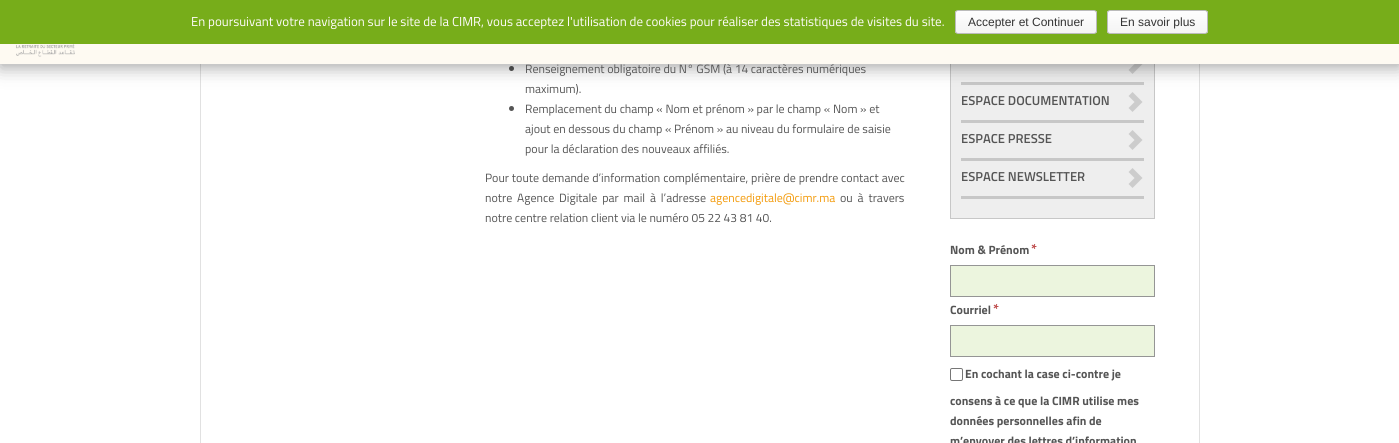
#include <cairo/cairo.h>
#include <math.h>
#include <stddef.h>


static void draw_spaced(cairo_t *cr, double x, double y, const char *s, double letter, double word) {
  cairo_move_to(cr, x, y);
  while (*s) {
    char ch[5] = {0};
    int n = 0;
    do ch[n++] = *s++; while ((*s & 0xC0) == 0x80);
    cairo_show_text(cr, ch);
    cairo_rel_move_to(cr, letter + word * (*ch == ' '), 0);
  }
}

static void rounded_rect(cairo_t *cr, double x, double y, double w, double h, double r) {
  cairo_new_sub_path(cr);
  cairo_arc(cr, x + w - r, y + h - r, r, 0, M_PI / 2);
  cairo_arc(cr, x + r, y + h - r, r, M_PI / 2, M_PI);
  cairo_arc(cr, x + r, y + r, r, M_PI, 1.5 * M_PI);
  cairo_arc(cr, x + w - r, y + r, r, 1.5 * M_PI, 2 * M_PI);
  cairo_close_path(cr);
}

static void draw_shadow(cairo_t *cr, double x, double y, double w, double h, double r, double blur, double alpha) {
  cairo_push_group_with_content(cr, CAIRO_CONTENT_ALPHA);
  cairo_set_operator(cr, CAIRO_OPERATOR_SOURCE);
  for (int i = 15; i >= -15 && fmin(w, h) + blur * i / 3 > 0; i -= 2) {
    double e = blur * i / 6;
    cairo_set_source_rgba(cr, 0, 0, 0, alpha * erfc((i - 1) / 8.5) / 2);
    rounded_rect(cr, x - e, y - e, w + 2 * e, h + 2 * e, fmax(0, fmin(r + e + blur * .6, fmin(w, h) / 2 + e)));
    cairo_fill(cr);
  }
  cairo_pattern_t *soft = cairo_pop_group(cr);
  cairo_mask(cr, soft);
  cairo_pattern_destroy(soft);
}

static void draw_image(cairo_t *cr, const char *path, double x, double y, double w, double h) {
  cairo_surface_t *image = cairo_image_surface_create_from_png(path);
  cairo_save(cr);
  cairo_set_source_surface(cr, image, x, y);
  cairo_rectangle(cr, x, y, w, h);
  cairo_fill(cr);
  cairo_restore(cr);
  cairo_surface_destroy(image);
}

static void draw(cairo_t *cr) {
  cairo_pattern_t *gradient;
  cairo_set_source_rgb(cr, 1, 1, 1);
  cairo_paint(cr);
  cairo_set_source_rgb(cr, 225 / 255.0, 225 / 255.0, 225 / 255.0);
  cairo_rectangle(cr, 1199, 64, 1, 379);
  cairo_fill(cr);
  cairo_rectangle(cr, 200, 64, 1, 379);
  cairo_fill(cr);
  cairo_set_source_rgb(cr, 85 / 255.0, 85 / 255.0, 85 / 255.0);
  cairo_arc(cr, 511.5, 68.5, 2.5, 0, 2 * M_PI);
  cairo_fill(cr);
  cairo_set_source_rgb(cr, 238 / 255.0, 238 / 255.0, 238 / 255.0);
  cairo_rectangle(cr, 951, 64, 203, 154);
  cairo_fill(cr);
  cairo_rectangle(cr, 950.5, -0.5, 204, 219);
  cairo_set_source_rgb(cr, 199 / 255.0, 199 / 255.0, 199 / 255.0);
  cairo_set_line_width(cr, 1);
  cairo_stroke(cr);
  cairo_rectangle(cr, 961, 82, 183, 3);
  cairo_fill(cr);
  cairo_set_source_rgb(cr, 204 / 255.0, 204 / 255.0, 204 / 255.0);
  cairo_new_path(cr);
  cairo_move_to(cr, 1132.5, 74);
  cairo_line_to(cr, 1128.5, 70);
  cairo_line_to(cr, 1134.5, 64);
  cairo_line_to(cr, 1128.5, 58);
  cairo_line_to(cr, 1132.5, 54);
  cairo_line_to(cr, 1142.5, 64);
  cairo_close_path(cr);
  cairo_move_to(cr, 1132.5, 112);
  cairo_line_to(cr, 1128.5, 108);
  cairo_line_to(cr, 1134.5, 102);
  cairo_line_to(cr, 1128.5, 96);
  cairo_line_to(cr, 1132.5, 92);
  cairo_line_to(cr, 1142.5, 102);
  cairo_close_path(cr);
  cairo_fill(cr);
  cairo_set_source_rgb(cr, 0, 0, 0);
  draw_shadow(cr, 0, 1, 1399, 64, 0, 7.5, 0.2);
  draw_shadow(cr, 0, 3, 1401, 66, 0, 9.5, 0.2);
  cairo_set_source_rgb(cr, 119 / 255.0, 173 / 255.0, 26 / 255.0);
  cairo_rectangle(cr, 0, 0, 1399, 44);
  cairo_fill(cr);
  cairo_save(cr);
  rounded_rect(cr, 955, 10, 142, 24, 3);
  cairo_clip(cr);
  gradient = cairo_pattern_create_linear(1026, 11, 1026, 33);
  cairo_pattern_add_color_stop_rgba(gradient, 0, 254 / 255.0, 254 / 255.0, 254 / 255.0, 1);
  cairo_pattern_add_color_stop_rgba(gradient, 1, 244 / 255.0, 244 / 255.0, 244 / 255.0, 1);
  cairo_set_source(cr, gradient);
  cairo_pattern_destroy(gradient);
  cairo_rectangle(cr, 955, 11, 142, 22);
  cairo_fill(cr);
  cairo_restore(cr);
  rounded_rect(cr, 955.5, 10.5, 141, 23, 2.5);
  cairo_set_source_rgb(cr, 187 / 255.0, 187 / 255.0, 187 / 255.0);
  cairo_stroke(cr);
  cairo_save(cr);
  rounded_rect(cr, 1107, 10, 101, 24, 3);
  cairo_clip(cr);
  gradient = cairo_pattern_create_linear(1158, 11, 1158, 33);
  cairo_pattern_add_color_stop_rgba(gradient, 0, 254 / 255.0, 254 / 255.0, 254 / 255.0, 1);
  cairo_pattern_add_color_stop_rgba(gradient, 1, 244 / 255.0, 244 / 255.0, 244 / 255.0, 1);
  cairo_set_source(cr, gradient);
  cairo_pattern_destroy(gradient);
  cairo_rectangle(cr, 1107, 11, 101, 22);
  cairo_fill(cr);
  cairo_restore(cr);
  rounded_rect(cr, 1107.5, 10.5, 100, 23, 2.5);
  cairo_stroke(cr);
  cairo_set_source_rgb(cr, 254 / 255.0, 250 / 255.0, 242 / 255.0);
  cairo_rectangle(cr, 0, 44, 1399, 20);
  cairo_fill(cr);
  draw_image(cr, "images/1.png", 16, 44, 59, 13);
  cairo_set_source_rgb(cr, 85 / 255.0, 85 / 255.0, 85 / 255.0);
  cairo_arc(cr, 511.5, 108.5, 2.5, 0, 2 * M_PI);
  cairo_fill(cr);
  cairo_set_source_rgb(cr, 199 / 255.0, 199 / 255.0, 199 / 255.0);
  cairo_rectangle(cr, 961, 120, 183, 3);
  cairo_fill(cr);
  cairo_rectangle(cr, 961, 158, 183, 3);
  cairo_fill(cr);
  cairo_set_source_rgb(cr, 204 / 255.0, 204 / 255.0, 204 / 255.0);
  cairo_new_path(cr);
  cairo_move_to(cr, 1132.5, 150);
  cairo_line_to(cr, 1128.5, 146);
  cairo_line_to(cr, 1134.5, 140);
  cairo_line_to(cr, 1128.5, 134);
  cairo_line_to(cr, 1132.5, 130);
  cairo_line_to(cr, 1142.5, 140);
  cairo_close_path(cr);
  cairo_move_to(cr, 1132.5, 188);
  cairo_line_to(cr, 1128.5, 184);
  cairo_line_to(cr, 1134.5, 178);
  cairo_line_to(cr, 1128.5, 172);
  cairo_line_to(cr, 1132.5, 168);
  cairo_line_to(cr, 1142.5, 178);
  cairo_close_path(cr);
  cairo_fill(cr);
  cairo_set_source_rgb(cr, 199 / 255.0, 199 / 255.0, 199 / 255.0);
  cairo_rectangle(cr, 961, 196, 183, 3);
  cairo_fill(cr);
  cairo_set_source_rgb(cr, 236 / 255.0, 245 / 255.0, 222 / 255.0);
  cairo_rectangle(cr, 950.5, 265.5, 204, 31);
  cairo_fill_preserve(cr);
  cairo_set_source_rgb(cr, 149 / 255.0, 149 / 255.0, 149 / 255.0);
  cairo_stroke(cr);
  cairo_set_source_rgb(cr, 236 / 255.0, 245 / 255.0, 222 / 255.0);
  cairo_rectangle(cr, 950.5, 325.5, 204, 31);
  cairo_fill_preserve(cr);
  cairo_set_source_rgb(cr, 149 / 255.0, 149 / 255.0, 149 / 255.0);
  cairo_stroke(cr);
  rounded_rect(cr, 950.5, 368.5, 12, 12, 1.5);
  cairo_set_source_rgb(cr, 118 / 255.0, 118 / 255.0, 118 / 255.0);
  cairo_stroke(cr);
  cairo_select_font_face(cr, "Titillium Web", CAIRO_FONT_SLANT_NORMAL, CAIRO_FONT_WEIGHT_NORMAL);
  cairo_set_font_size(cr, 13);
  cairo_set_source_rgb(cr, 1, 252 / 255.0, 252 / 255.0);
  cairo_move_to(cr, 191, 26);
  cairo_show_text(cr, "En poursuivant votre navigation sur le site de la CIMR, vous acceptez l'utilisation de cookies pour réaliser des statistiques de visites du site.");
  cairo_select_font_face(cr, "Liberation Sans", CAIRO_FONT_SLANT_NORMAL, CAIRO_FONT_WEIGHT_NORMAL);
  cairo_set_font_size(cr, 12);
  cairo_set_source_rgb(cr, 51 / 255.0, 51 / 255.0, 51 / 255.0);
  cairo_move_to(cr, 968, 26);
  cairo_show_text(cr, "Accepter et Continuer");
  cairo_move_to(cr, 1120, 26);
  cairo_show_text(cr, "En savoir plus");
  cairo_select_font_face(cr, "Titillium Web", CAIRO_FONT_SLANT_NORMAL, CAIRO_FONT_WEIGHT_NORMAL);
  cairo_set_source_rgb(cr, 85 / 255.0, 85 / 255.0, 85 / 255.0);
  cairo_move_to(cr, 525, 73);
  cairo_show_text(cr, "Renseignement obligatoire du N° GSM (à 14 caractères numériques");
  cairo_move_to(cr, 525, 93);
  cairo_show_text(cr, "maximum).");
  cairo_move_to(cr, 525, 113);
  cairo_show_text(cr, "Remplacement du champ « Nom et prénom » par le champ « Nom » et");
  cairo_move_to(cr, 525, 133);
  cairo_show_text(cr, "ajout en dessous du champ « Prénom » au niveau du formulaire de saisie");
  cairo_move_to(cr, 525, 153);
  cairo_show_text(cr, "pour la déclaration des nouveaux affiliés.");
  draw_spaced(cr, 485, 182, "Pour toute demande d’information complémentaire, prière de prendre contact avec", 0, 0.25);
  draw_spaced(cr, 485, 202, "notre Agence Digitale par mail à l’adresse", 0, 2.25);
  cairo_set_source_rgb(cr, 243 / 255.0, 154 / 255.0, 9 / 255.0);
  cairo_move_to(cr, 710, 202);
  cairo_show_text(cr, "agencedigitale@cimr.ma");
  cairo_set_source_rgb(cr, 85 / 255.0, 85 / 255.0, 85 / 255.0);
  draw_spaced(cr, 840, 202, "ou à travers", 0, 2.25);
  cairo_move_to(cr, 485, 222);
  cairo_show_text(cr, "notre centre relation client via le numéro 05 22 43 81 40.");
  cairo_select_font_face(cr, "Titillium Web SemiBold", CAIRO_FONT_SLANT_NORMAL, CAIRO_FONT_WEIGHT_NORMAL);
  cairo_set_font_size(cr, 13);
  cairo_move_to(cr, 961, 105);
  cairo_show_text(cr, "ESPACE DOCUMENTATION");
  cairo_move_to(cr, 961, 143);
  cairo_show_text(cr, "ESPACE PRESSE");
  cairo_move_to(cr, 961, 181);
  cairo_show_text(cr, "ESPACE NEWSLETTER");
  cairo_select_font_face(cr, "Titillium Web", CAIRO_FONT_SLANT_NORMAL, CAIRO_FONT_WEIGHT_BOLD);
  cairo_set_font_size(cr, 12);
  cairo_move_to(cr, 950, 254);
  cairo_show_text(cr, "Nom & Prénom");
  cairo_set_font_size(cr, 14);
  cairo_set_source_rgb(cr, 191 / 255.0, 77 / 255.0, 77 / 255.0);
  cairo_move_to(cr, 1031, 254);
  cairo_show_text(cr, "*");
  cairo_set_font_size(cr, 12);
  cairo_set_source_rgb(cr, 85 / 255.0, 85 / 255.0, 85 / 255.0);
  cairo_move_to(cr, 950, 314);
  cairo_show_text(cr, "Courriel");
  cairo_set_font_size(cr, 14);
  cairo_set_source_rgb(cr, 191 / 255.0, 77 / 255.0, 77 / 255.0);
  cairo_move_to(cr, 993, 314);
  cairo_show_text(cr, "*");
  cairo_set_font_size(cr, 12);
  cairo_set_source_rgb(cr, 85 / 255.0, 85 / 255.0, 85 / 255.0);
  cairo_move_to(cr, 965, 378);
  cairo_show_text(cr, "En cochant la case ci-contre je");
  cairo_move_to(cr, 950, 405);
  cairo_show_text(cr, "consens à ce que la CIMR utilise mes");
  cairo_move_to(cr, 950, 425);
  cairo_show_text(cr, "données personnelles afin de");
  cairo_move_to(cr, 950, 445);
  cairo_show_text(cr, "m’envoyer des lettres d’information");
}

int main(void) {
  cairo_surface_t *surface = cairo_image_surface_create(CAIRO_FORMAT_RGB24, 1399, 443);
  cairo_t *cr = cairo_create(surface);
  cairo_font_options_t *options = cairo_font_options_create();
  cairo_font_options_set_hint_metrics(options, CAIRO_HINT_METRICS_OFF);
  cairo_font_options_set_hint_style(options, CAIRO_HINT_STYLE_NONE);
  cairo_set_font_options(cr, options);
  cairo_set_miter_limit(cr, 4);
  draw(cr);
  cairo_surface_write_to_png(surface, "out.png");
  cairo_font_options_destroy(options);
  cairo_destroy(cr);
  cairo_surface_destroy(surface);
  return 0;
}
